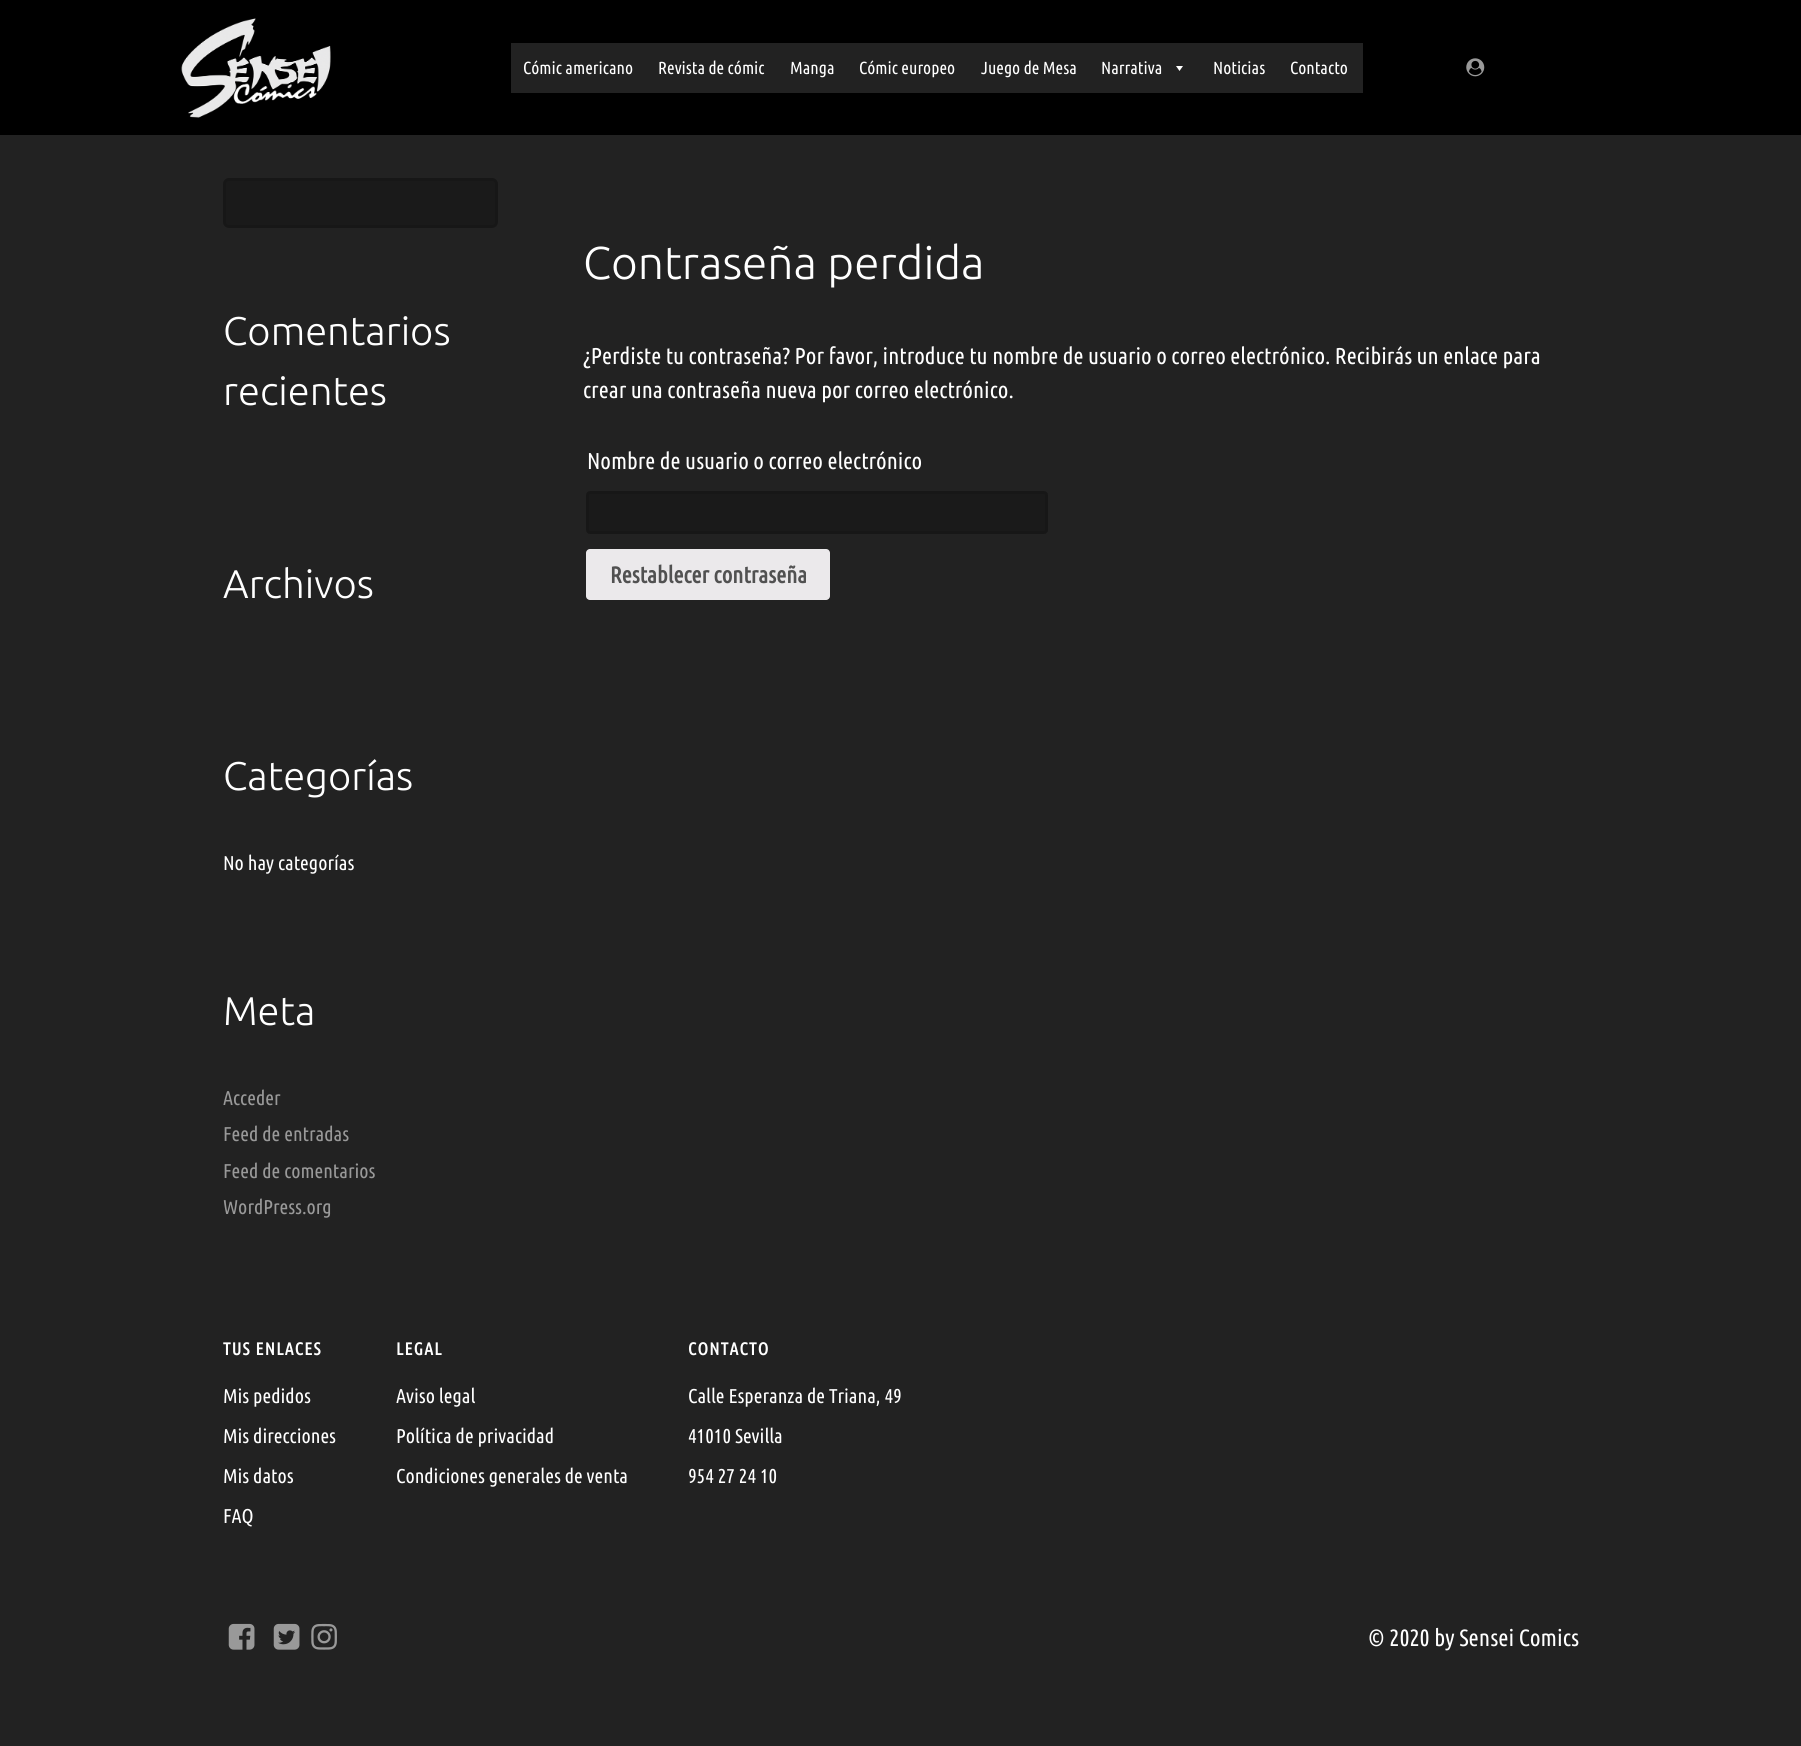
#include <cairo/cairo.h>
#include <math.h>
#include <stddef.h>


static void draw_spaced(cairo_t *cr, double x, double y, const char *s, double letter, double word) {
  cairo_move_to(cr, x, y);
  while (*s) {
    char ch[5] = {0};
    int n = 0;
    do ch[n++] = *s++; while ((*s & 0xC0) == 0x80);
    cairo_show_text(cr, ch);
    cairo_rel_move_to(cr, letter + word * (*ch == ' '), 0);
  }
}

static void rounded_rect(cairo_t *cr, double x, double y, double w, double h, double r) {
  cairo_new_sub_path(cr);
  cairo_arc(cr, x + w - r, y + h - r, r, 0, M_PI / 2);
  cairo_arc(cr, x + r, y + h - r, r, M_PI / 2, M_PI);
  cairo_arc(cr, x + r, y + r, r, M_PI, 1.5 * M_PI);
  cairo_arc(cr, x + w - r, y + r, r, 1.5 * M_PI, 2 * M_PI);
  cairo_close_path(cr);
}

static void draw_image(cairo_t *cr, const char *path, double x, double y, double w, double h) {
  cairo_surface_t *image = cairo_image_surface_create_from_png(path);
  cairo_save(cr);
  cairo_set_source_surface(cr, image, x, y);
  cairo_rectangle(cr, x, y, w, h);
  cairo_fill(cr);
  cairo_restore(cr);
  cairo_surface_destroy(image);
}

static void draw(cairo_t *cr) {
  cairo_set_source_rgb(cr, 34 / 255.0, 34 / 255.0, 34 / 255.0);
  cairo_paint(cr);
  cairo_set_source_rgb(cr, 0, 0, 0);
  cairo_rectangle(cr, 0, 0, 1801, 135);
  cairo_fill(cr);
  draw_image(cr, "images/1.png", 181, 18, 150, 100);
  cairo_set_source_rgb(cr, 34 / 255.0, 34 / 255.0, 34 / 255.0);
  cairo_rectangle(cr, 511, 43, 852, 50);
  cairo_fill(cr);
  cairo_set_source_rgb(cr, 1, 1, 1);
  cairo_new_path(cr);
  cairo_move_to(cr, 1183, 66);
  cairo_line_to(cr, 1179.5, 71);
  cairo_line_to(cr, 1176, 66);
  cairo_close_path(cr);
  cairo_fill(cr);
  draw_image(cr, "images/2.png", 1466, 58, 19, 19);
  cairo_set_source_rgb(cr, 26 / 255.0, 26 / 255.0, 26 / 255.0);
  rounded_rect(cr, 224.5, 179.5, 272, 47, 4.5);
  cairo_fill_preserve(cr);
  cairo_set_source_rgb(cr, 23 / 255.0, 23 / 255.0, 23 / 255.0);
  cairo_set_line_width(cr, 3);
  cairo_stroke(cr);
  cairo_set_source_rgb(cr, 26 / 255.0, 26 / 255.0, 26 / 255.0);
  rounded_rect(cr, 586, 491, 462, 43, 4);
  cairo_fill(cr);
  rounded_rect(cr, 587.5, 492.5, 459, 40, 2.5);
  cairo_set_source_rgba(cr, 0, 0, 0, 0.1);
  cairo_stroke(cr);
  cairo_set_source_rgb(cr, 235 / 255.0, 233 / 255.0, 235 / 255.0);
  rounded_rect(cr, 586, 549, 244, 51, 4);
  cairo_fill(cr);
  draw_image(cr, "images/3.png", 228, 1623, 27, 27);
  draw_image(cr, "images/4.png", 273, 1623, 27, 27);
  draw_image(cr, "images/5.png", 311, 1623, 26, 27);
  cairo_select_font_face(cr, "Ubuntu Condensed", CAIRO_FONT_SLANT_NORMAL, CAIRO_FONT_WEIGHT_NORMAL);
  cairo_set_font_size(cr, 17.5);
  cairo_set_source_rgb(cr, 1, 1, 1);
  cairo_move_to(cr, 523, 74);
  cairo_show_text(cr, "Cómic americano");
  cairo_move_to(cr, 658, 74);
  cairo_show_text(cr, "Revista de cómic");
  cairo_move_to(cr, 790, 74);
  cairo_show_text(cr, "Manga");
  cairo_move_to(cr, 859, 74);
  cairo_show_text(cr, "Cómic europeo");
  cairo_move_to(cr, 981, 74);
  cairo_show_text(cr, "Juego de Mesa");
  cairo_move_to(cr, 1101, 74);
  cairo_show_text(cr, "Narrativa");
  cairo_move_to(cr, 1213, 74);
  cairo_show_text(cr, "Noticias");
  cairo_move_to(cr, 1290, 74);
  cairo_show_text(cr, "Contacto");
  cairo_select_font_face(cr, "Ubuntu Light", CAIRO_FONT_SLANT_NORMAL, CAIRO_FONT_WEIGHT_NORMAL);
  cairo_set_font_size(cr, 40);
  cairo_move_to(cr, 223, 345);
  cairo_show_text(cr, "Comentarios");
  cairo_move_to(cr, 223, 405);
  cairo_show_text(cr, "recientes");
  cairo_move_to(cr, 223, 598);
  cairo_show_text(cr, "Archivos");
  cairo_move_to(cr, 223, 790);
  cairo_show_text(cr, "Categorías");
  cairo_select_font_face(cr, "Ubuntu Condensed", CAIRO_FONT_SLANT_NORMAL, CAIRO_FONT_WEIGHT_NORMAL);
  cairo_set_font_size(cr, 20);
  cairo_move_to(cr, 223, 870);
  cairo_show_text(cr, "No hay categorías");
  cairo_select_font_face(cr, "Ubuntu Light", CAIRO_FONT_SLANT_NORMAL, CAIRO_FONT_WEIGHT_NORMAL);
  cairo_set_font_size(cr, 40);
  cairo_move_to(cr, 223, 1025);
  cairo_show_text(cr, "Meta");
  cairo_select_font_face(cr, "Ubuntu Condensed", CAIRO_FONT_SLANT_NORMAL, CAIRO_FONT_WEIGHT_NORMAL);
  cairo_set_font_size(cr, 20);
  cairo_set_source_rgb(cr, 153 / 255.0, 153 / 255.0, 153 / 255.0);
  cairo_move_to(cr, 223, 1105);
  cairo_show_text(cr, "Acceder");
  cairo_move_to(cr, 223, 1141);
  cairo_show_text(cr, "Feed de entradas");
  cairo_move_to(cr, 223, 1178);
  cairo_show_text(cr, "Feed de comentarios");
  cairo_move_to(cr, 223, 1214);
  cairo_show_text(cr, "WordPress.org");
  cairo_select_font_face(cr, "Ubuntu Light", CAIRO_FONT_SLANT_NORMAL, CAIRO_FONT_WEIGHT_NORMAL);
  cairo_set_font_size(cr, 46);
  cairo_set_source_rgb(cr, 1, 1, 1);
  cairo_move_to(cr, 583, 279);
  cairo_show_text(cr, "Contraseña perdida");
  cairo_select_font_face(cr, "Ubuntu Condensed", CAIRO_FONT_SLANT_NORMAL, CAIRO_FONT_WEIGHT_NORMAL);
  cairo_set_font_size(cr, 23);
  cairo_move_to(cr, 583, 364);
  cairo_show_text(cr, "¿Perdiste tu contraseña? Por favor, introduce tu nombre de usuario o correo electrónico. Recibirás un enlace para");
  cairo_move_to(cr, 583, 398);
  cairo_show_text(cr, "crear una contraseña nueva por correo electrónico.");
  cairo_move_to(cr, 587, 469);
  cairo_show_text(cr, "Nombre de usuario o correo electrónico");
  cairo_select_font_face(cr, "Ubuntu Condensed", CAIRO_FONT_SLANT_NORMAL, CAIRO_FONT_WEIGHT_BOLD);
  cairo_set_source_rgb(cr, 81 / 255.0, 81 / 255.0, 81 / 255.0);
  cairo_move_to(cr, 610, 583);
  cairo_show_text(cr, "Restablecer contraseña");
  cairo_set_font_size(cr, 17.5);
  cairo_set_source_rgb(cr, 1, 1, 1);
  draw_spaced(cr, 223, 1355, "TUS ENLACES", 1.25, 0);
  cairo_select_font_face(cr, "Ubuntu Condensed", CAIRO_FONT_SLANT_NORMAL, CAIRO_FONT_WEIGHT_NORMAL);
  cairo_set_font_size(cr, 20);
  cairo_move_to(cr, 223, 1403);
  cairo_show_text(cr, "Mis pedidos");
  cairo_move_to(cr, 223, 1443);
  cairo_show_text(cr, "Mis direcciones");
  cairo_move_to(cr, 223, 1483);
  cairo_show_text(cr, "Mis datos");
  cairo_move_to(cr, 223, 1523);
  cairo_show_text(cr, "FAQ");
  cairo_select_font_face(cr, "Ubuntu Condensed", CAIRO_FONT_SLANT_NORMAL, CAIRO_FONT_WEIGHT_BOLD);
  cairo_set_font_size(cr, 17.5);
  draw_spaced(cr, 396, 1355, "LEGAL", 1.25, 0);
  cairo_select_font_face(cr, "Ubuntu Condensed", CAIRO_FONT_SLANT_NORMAL, CAIRO_FONT_WEIGHT_NORMAL);
  cairo_set_font_size(cr, 20);
  cairo_move_to(cr, 396, 1403);
  cairo_show_text(cr, "Aviso legal");
  cairo_move_to(cr, 396, 1443);
  cairo_show_text(cr, "Política de privacidad");
  cairo_move_to(cr, 396, 1483);
  cairo_show_text(cr, "Condiciones generales de venta");
  cairo_select_font_face(cr, "Ubuntu Condensed", CAIRO_FONT_SLANT_NORMAL, CAIRO_FONT_WEIGHT_BOLD);
  cairo_set_font_size(cr, 17.5);
  draw_spaced(cr, 688, 1355, "CONTACTO", 1.25, 0);
  cairo_select_font_face(cr, "Ubuntu Condensed", CAIRO_FONT_SLANT_NORMAL, CAIRO_FONT_WEIGHT_NORMAL);
  cairo_set_font_size(cr, 20);
  cairo_move_to(cr, 688, 1403);
  cairo_show_text(cr, "Calle Esperanza de Triana, 49");
  cairo_move_to(cr, 688, 1443);
  cairo_show_text(cr, "41010 Sevilla");
  cairo_move_to(cr, 688, 1483);
  cairo_show_text(cr, "954 27 24 10");
  cairo_set_font_size(cr, 23.5);
  cairo_move_to(cr, 1368, 1646);
  cairo_show_text(cr, "© 2020 by Sensei Comics");
}

int main(void) {
  cairo_surface_t *surface = cairo_image_surface_create(CAIRO_FORMAT_RGB24, 1801, 1746);
  cairo_t *cr = cairo_create(surface);
  cairo_font_options_t *options = cairo_font_options_create();
  cairo_font_options_set_hint_metrics(options, CAIRO_HINT_METRICS_OFF);
  cairo_font_options_set_hint_style(options, CAIRO_HINT_STYLE_NONE);
  cairo_set_font_options(cr, options);
  cairo_set_miter_limit(cr, 4);
  draw(cr);
  cairo_surface_write_to_png(surface, "out.png");
  cairo_font_options_destroy(options);
  cairo_destroy(cr);
  cairo_surface_destroy(surface);
  return 0;
}
